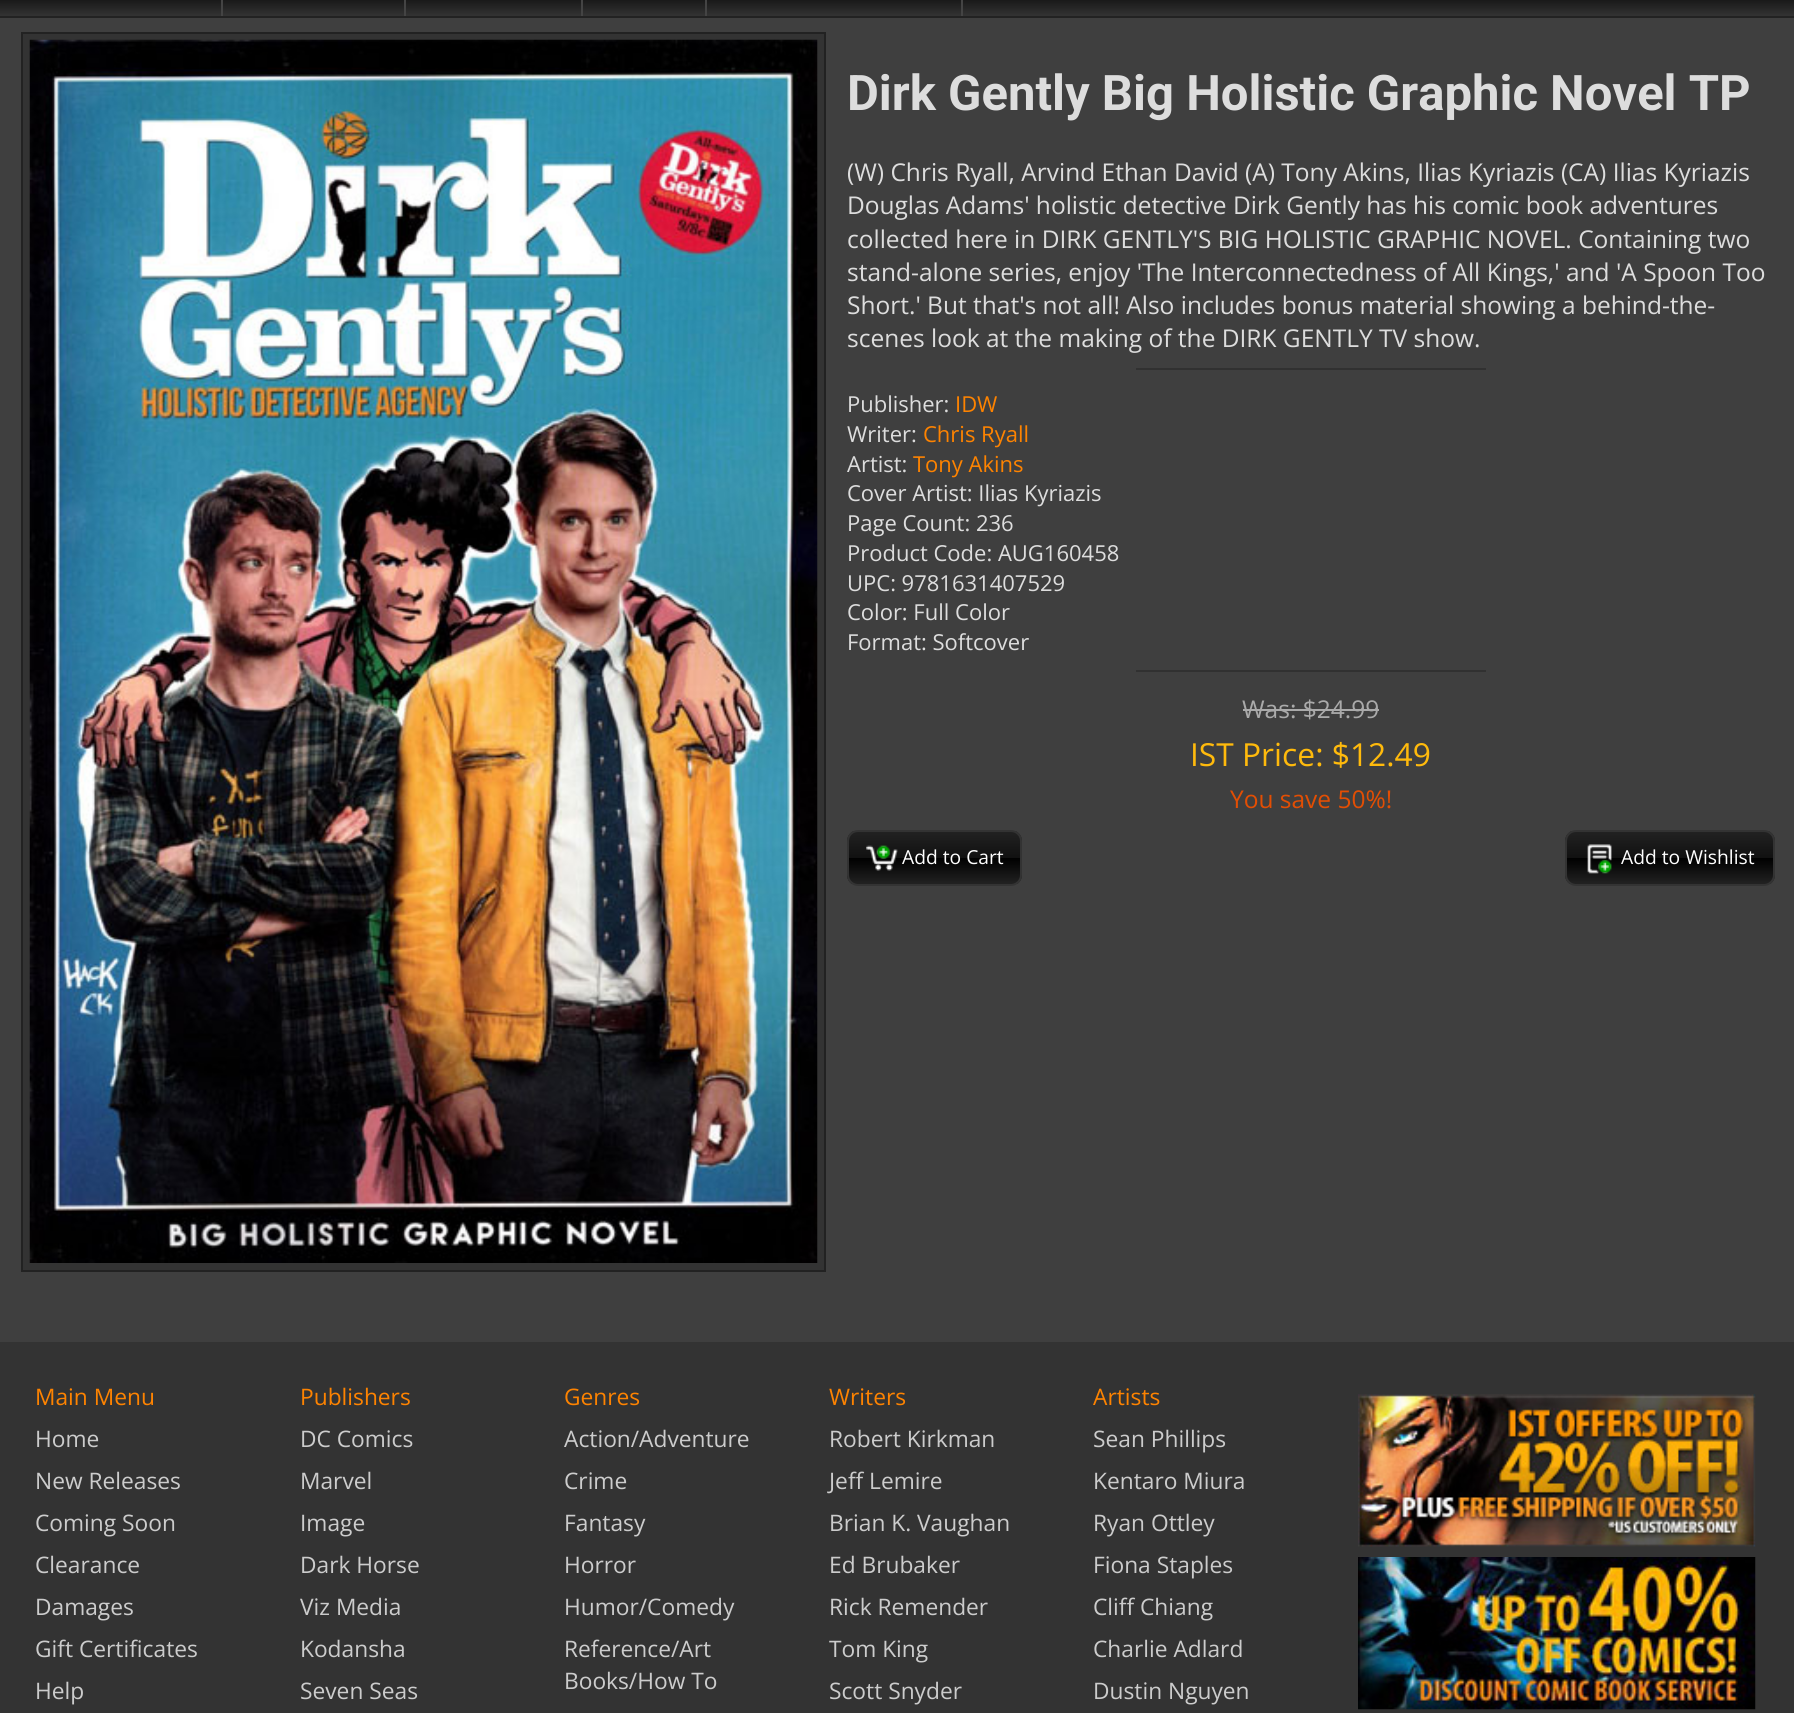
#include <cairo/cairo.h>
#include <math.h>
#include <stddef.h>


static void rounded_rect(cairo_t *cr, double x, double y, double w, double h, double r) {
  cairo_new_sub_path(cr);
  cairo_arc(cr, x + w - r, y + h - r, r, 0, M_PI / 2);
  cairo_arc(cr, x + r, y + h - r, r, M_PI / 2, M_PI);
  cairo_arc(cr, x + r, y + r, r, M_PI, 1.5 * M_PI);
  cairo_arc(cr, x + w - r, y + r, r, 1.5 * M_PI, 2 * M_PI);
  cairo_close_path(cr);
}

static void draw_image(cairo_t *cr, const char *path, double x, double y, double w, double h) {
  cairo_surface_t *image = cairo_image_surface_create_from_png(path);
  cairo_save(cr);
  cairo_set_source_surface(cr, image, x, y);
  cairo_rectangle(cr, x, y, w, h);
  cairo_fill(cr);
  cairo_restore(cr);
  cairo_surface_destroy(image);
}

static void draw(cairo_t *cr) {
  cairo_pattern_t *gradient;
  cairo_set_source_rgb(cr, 63 / 255.0, 63 / 255.0, 63 / 255.0);
  cairo_paint(cr);
  gradient = cairo_pattern_create_linear(898, -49, 898, 16);
  cairo_pattern_add_color_stop_rgba(gradient, 0, 51 / 255.0, 51 / 255.0, 51 / 255.0, 1);
  cairo_pattern_add_color_stop_rgba(gradient, 0.5, 17 / 255.0, 17 / 255.0, 17 / 255.0, 1);
  cairo_pattern_add_color_stop_rgba(gradient, 0.51, 0, 0, 0, 1);
  cairo_pattern_add_color_stop_rgba(gradient, 1, 51 / 255.0, 51 / 255.0, 51 / 255.0, 1);
  cairo_set_source(cr, gradient);
  cairo_pattern_destroy(gradient);
  cairo_rectangle(cr, 0, 0, 1794, 16);
  cairo_fill(cr);
  cairo_set_source_rgb(cr, 34 / 255.0, 34 / 255.0, 34 / 255.0);
  cairo_rectangle(cr, 0, 16, 1794, 2);
  cairo_fill(cr);
  cairo_set_source_rgb(cr, 68 / 255.0, 68 / 255.0, 68 / 255.0);
  cairo_rectangle(cr, 221, 0, 2, 16);
  cairo_fill(cr);
  cairo_rectangle(cr, 404, 0, 2, 16);
  cairo_fill(cr);
  cairo_rectangle(cr, 581, 0, 2, 16);
  cairo_fill(cr);
  cairo_rectangle(cr, 705, 0, 2, 16);
  cairo_fill(cr);
  cairo_rectangle(cr, 961, 0, 2, 16);
  cairo_fill(cr);
  cairo_set_source_rgb(cr, 51 / 255.0, 51 / 255.0, 51 / 255.0);
  cairo_rectangle(cr, 22, 33, 803, 1238);
  cairo_fill_preserve(cr);
  cairo_set_source_rgb(cr, 34 / 255.0, 34 / 255.0, 34 / 255.0);
  cairo_stroke(cr);
  draw_image(cr, "images/1.png", 29, 39, 789, 1224);
  cairo_set_source_rgb(cr, 49 / 255.0, 49 / 255.0, 49 / 255.0);
  cairo_rectangle(cr, 1136, 368, 350, 2);
  cairo_fill(cr);
  cairo_rectangle(cr, 1136, 670, 350, 2);
  cairo_fill(cr);
  cairo_set_source_rgb(cr, 170 / 255.0, 170 / 255.0, 170 / 255.0);
  cairo_rectangle(cr, 1243, 709, 136, 2);
  cairo_fill(cr);
  cairo_save(cr);
  rounded_rect(cr, 847, 830, 175, 56, 11);
  cairo_clip(cr);
  gradient = cairo_pattern_create_linear(935, 831, 935, 884);
  cairo_pattern_add_color_stop_rgba(gradient, 0, 34 / 255.0, 34 / 255.0, 34 / 255.0, 1);
  cairo_pattern_add_color_stop_rgba(gradient, 0.5, 17 / 255.0, 17 / 255.0, 17 / 255.0, 1);
  cairo_pattern_add_color_stop_rgba(gradient, 0.51, 0, 0, 0, 1);
  cairo_pattern_add_color_stop_rgba(gradient, 1, 34 / 255.0, 34 / 255.0, 34 / 255.0, 1);
  cairo_set_source(cr, gradient);
  cairo_pattern_destroy(gradient);
  cairo_rectangle(cr, 847, 831, 175, 53);
  cairo_fill(cr);
  cairo_restore(cr);
  rounded_rect(cr, 848, 831, 173, 54, 10);
  cairo_set_source_rgb(cr, 51 / 255.0, 51 / 255.0, 51 / 255.0);
  cairo_stroke(cr);
  draw_image(cr, "images/2.png", 866, 845, 32, 26);
  cairo_save(cr);
  rounded_rect(cr, 1565, 830, 210, 56, 11);
  cairo_clip(cr);
  gradient = cairo_pattern_create_linear(1670, 831, 1670, 884);
  cairo_pattern_add_color_stop_rgba(gradient, 0, 34 / 255.0, 34 / 255.0, 34 / 255.0, 1);
  cairo_pattern_add_color_stop_rgba(gradient, 0.5, 17 / 255.0, 17 / 255.0, 17 / 255.0, 1);
  cairo_pattern_add_color_stop_rgba(gradient, 0.51, 0, 0, 0, 1);
  cairo_pattern_add_color_stop_rgba(gradient, 1, 34 / 255.0, 34 / 255.0, 34 / 255.0, 1);
  cairo_set_source(cr, gradient);
  cairo_pattern_destroy(gradient);
  cairo_rectangle(cr, 1565, 831, 210, 53);
  cairo_fill(cr);
  cairo_restore(cr);
  rounded_rect(cr, 1566, 831, 208, 54, 10);
  cairo_stroke(cr);
  draw_image(cr, "images/3.png", 1587, 844, 25, 30);
  cairo_rectangle(cr, 0, 1342, 1794, 371);
  cairo_fill(cr);
  draw_image(cr, "images/4.png", 1358, 1394, 398, 153);
  draw_image(cr, "images/5.png", 1358, 1557, 398, 153);
  cairo_select_font_face(cr, "Roboto", CAIRO_FONT_SLANT_NORMAL, CAIRO_FONT_WEIGHT_BOLD);
  cairo_set_font_size(cr, 49);
  cairo_set_source_rgb(cr, 221 / 255.0, 221 / 255.0, 221 / 255.0);
  cairo_move_to(cr, 847, 110);
  cairo_show_text(cr, "Dirk Gently Big Holistic Graphic Novel TP");
  cairo_select_font_face(cr, "Open Sans", CAIRO_FONT_SLANT_NORMAL, CAIRO_FONT_WEIGHT_NORMAL);
  cairo_set_font_size(cr, 24.5);
  cairo_move_to(cr, 847, 181);
  cairo_show_text(cr, "(W) Chris Ryall, Arvind Ethan David (A) Tony Akins, Ilias Kyriazis (CA) Ilias Kyriazis");
  cairo_move_to(cr, 847, 214);
  cairo_show_text(cr, "Douglas Adams' holistic detective Dirk Gently has his comic book adventures");
  cairo_move_to(cr, 847, 248);
  cairo_show_text(cr, "collected here in DIRK GENTLY'S BIG HOLISTIC GRAPHIC NOVEL. Containing two");
  cairo_move_to(cr, 847, 281);
  cairo_show_text(cr, "stand-alone series, enjoy 'The Interconnectedness of All Kings,' and 'A Spoon Too");
  cairo_move_to(cr, 847, 314);
  cairo_show_text(cr, "Short.' But that's not all! Also includes bonus material showing a behind-the-");
  cairo_move_to(cr, 847, 347);
  cairo_show_text(cr, "scenes look at the making of the DIRK GENTLY TV show.");
  cairo_set_font_size(cr, 22);
  cairo_move_to(cr, 847, 412);
  cairo_show_text(cr, "Publisher:");
  cairo_set_source_rgb(cr, 254 / 255.0, 131 / 255.0, 0);
  cairo_move_to(cr, 955, 412);
  cairo_show_text(cr, "IDW");
  cairo_set_source_rgb(cr, 221 / 255.0, 221 / 255.0, 221 / 255.0);
  cairo_move_to(cr, 847, 442);
  cairo_show_text(cr, "Writer:");
  cairo_set_source_rgb(cr, 254 / 255.0, 131 / 255.0, 0);
  cairo_move_to(cr, 923, 442);
  cairo_show_text(cr, "Chris Ryall");
  cairo_set_source_rgb(cr, 221 / 255.0, 221 / 255.0, 221 / 255.0);
  cairo_move_to(cr, 847, 472);
  cairo_show_text(cr, "Artist:");
  cairo_set_source_rgb(cr, 254 / 255.0, 131 / 255.0, 0);
  cairo_move_to(cr, 913, 472);
  cairo_show_text(cr, "Tony Akins");
  cairo_set_source_rgb(cr, 221 / 255.0, 221 / 255.0, 221 / 255.0);
  cairo_move_to(cr, 847, 501);
  cairo_show_text(cr, "Cover Artist: Ilias Kyriazis");
  cairo_move_to(cr, 847, 531);
  cairo_show_text(cr, "Page Count: 236");
  cairo_move_to(cr, 847, 561);
  cairo_show_text(cr, "Product Code: AUG160458");
  cairo_move_to(cr, 847, 591);
  cairo_show_text(cr, "UPC: 9781631407529");
  cairo_move_to(cr, 847, 620);
  cairo_show_text(cr, "Color: Full Color");
  cairo_move_to(cr, 847, 650);
  cairo_show_text(cr, "Format: Softcover");
  cairo_set_font_size(cr, 24.5);
  cairo_set_source_rgb(cr, 170 / 255.0, 170 / 255.0, 170 / 255.0);
  cairo_move_to(cr, 1242, 718);
  cairo_show_text(cr, "Was: $24.99");
  cairo_set_font_size(cr, 31.75);
  cairo_set_source_rgb(cr, 1, 186 / 255.0, 12 / 255.0);
  cairo_move_to(cr, 1190, 766);
  cairo_show_text(cr, "IST Price: $12.49");
  cairo_set_font_size(cr, 24.5);
  cairo_set_source_rgb(cr, 227 / 255.0, 78 / 255.0, 3 / 255.0);
  cairo_move_to(cr, 1230, 808);
  cairo_show_text(cr, "You save 50%!");
  cairo_set_font_size(cr, 19.25);
  cairo_set_source_rgb(cr, 1, 1, 1);
  cairo_move_to(cr, 902, 864);
  cairo_show_text(cr, "Add to Cart");
  cairo_move_to(cr, 1621, 864);
  cairo_show_text(cr, "Add to Wishlist");
  cairo_set_font_size(cr, 22.75);
  cairo_set_source_rgb(cr, 254 / 255.0, 131 / 255.0, 0);
  cairo_move_to(cr, 35, 1405);
  cairo_show_text(cr, "Main Menu");
  cairo_set_source_rgb(cr, 204 / 255.0, 204 / 255.0, 204 / 255.0);
  cairo_move_to(cr, 35, 1447);
  cairo_show_text(cr, "Home");
  cairo_move_to(cr, 35, 1489);
  cairo_show_text(cr, "New Releases");
  cairo_move_to(cr, 35, 1531);
  cairo_show_text(cr, "Coming Soon");
  cairo_move_to(cr, 35, 1573);
  cairo_show_text(cr, "Clearance");
  cairo_move_to(cr, 35, 1615);
  cairo_show_text(cr, "Damages");
  cairo_move_to(cr, 35, 1657);
  cairo_show_text(cr, "Gift Certificates");
  cairo_move_to(cr, 35, 1699);
  cairo_show_text(cr, "Help");
  cairo_set_source_rgb(cr, 254 / 255.0, 131 / 255.0, 0);
  cairo_move_to(cr, 300, 1405);
  cairo_show_text(cr, "Publishers");
  cairo_set_source_rgb(cr, 204 / 255.0, 204 / 255.0, 204 / 255.0);
  cairo_move_to(cr, 300, 1447);
  cairo_show_text(cr, "DC Comics");
  cairo_move_to(cr, 300, 1489);
  cairo_show_text(cr, "Marvel");
  cairo_move_to(cr, 300, 1531);
  cairo_show_text(cr, "Image");
  cairo_move_to(cr, 300, 1573);
  cairo_show_text(cr, "Dark Horse");
  cairo_move_to(cr, 300, 1615);
  cairo_show_text(cr, "Viz Media");
  cairo_move_to(cr, 300, 1657);
  cairo_show_text(cr, "Kodansha");
  cairo_move_to(cr, 300, 1699);
  cairo_show_text(cr, "Seven Seas");
  cairo_set_source_rgb(cr, 254 / 255.0, 131 / 255.0, 0);
  cairo_move_to(cr, 564, 1405);
  cairo_show_text(cr, "Genres");
  cairo_set_source_rgb(cr, 204 / 255.0, 204 / 255.0, 204 / 255.0);
  cairo_move_to(cr, 564, 1447);
  cairo_show_text(cr, "Action/Adventure");
  cairo_move_to(cr, 564, 1489);
  cairo_show_text(cr, "Crime");
  cairo_move_to(cr, 564, 1531);
  cairo_show_text(cr, "Fantasy");
  cairo_move_to(cr, 564, 1573);
  cairo_show_text(cr, "Horror");
  cairo_move_to(cr, 564, 1615);
  cairo_show_text(cr, "Humor/Comedy");
  cairo_move_to(cr, 564, 1657);
  cairo_show_text(cr, "Reference/Art");
  cairo_move_to(cr, 564, 1689);
  cairo_show_text(cr, "Books/How To");
  cairo_set_source_rgb(cr, 254 / 255.0, 131 / 255.0, 0);
  cairo_move_to(cr, 829, 1405);
  cairo_show_text(cr, "Writers");
  cairo_set_source_rgb(cr, 204 / 255.0, 204 / 255.0, 204 / 255.0);
  cairo_move_to(cr, 829, 1447);
  cairo_show_text(cr, "Robert Kirkman");
  cairo_move_to(cr, 829, 1489);
  cairo_show_text(cr, "Jeff Lemire");
  cairo_move_to(cr, 829, 1531);
  cairo_show_text(cr, "Brian K. Vaughan");
  cairo_move_to(cr, 829, 1573);
  cairo_show_text(cr, "Ed Brubaker");
  cairo_move_to(cr, 829, 1615);
  cairo_show_text(cr, "Rick Remender");
  cairo_move_to(cr, 829, 1657);
  cairo_show_text(cr, "Tom King");
  cairo_move_to(cr, 829, 1699);
  cairo_show_text(cr, "Scott Snyder");
  cairo_set_source_rgb(cr, 254 / 255.0, 131 / 255.0, 0);
  cairo_move_to(cr, 1093, 1405);
  cairo_show_text(cr, "Artists");
  cairo_set_source_rgb(cr, 204 / 255.0, 204 / 255.0, 204 / 255.0);
  cairo_move_to(cr, 1093, 1447);
  cairo_show_text(cr, "Sean Phillips");
  cairo_move_to(cr, 1093, 1489);
  cairo_show_text(cr, "Kentaro Miura");
  cairo_move_to(cr, 1093, 1531);
  cairo_show_text(cr, "Ryan Ottley");
  cairo_move_to(cr, 1093, 1573);
  cairo_show_text(cr, "Fiona Staples");
  cairo_move_to(cr, 1093, 1615);
  cairo_show_text(cr, "Cliff Chiang");
  cairo_move_to(cr, 1093, 1657);
  cairo_show_text(cr, "Charlie Adlard");
  cairo_move_to(cr, 1093, 1699);
  cairo_show_text(cr, "Dustin Nguyen");
}

int main(void) {
  cairo_surface_t *surface = cairo_image_surface_create(CAIRO_FORMAT_RGB24, 1794, 1713);
  cairo_t *cr = cairo_create(surface);
  cairo_font_options_t *options = cairo_font_options_create();
  cairo_font_options_set_hint_metrics(options, CAIRO_HINT_METRICS_OFF);
  cairo_font_options_set_hint_style(options, CAIRO_HINT_STYLE_NONE);
  cairo_set_font_options(cr, options);
  cairo_set_miter_limit(cr, 4);
  draw(cr);
  cairo_surface_write_to_png(surface, "out.png");
  cairo_font_options_destroy(options);
  cairo_destroy(cr);
  cairo_surface_destroy(surface);
  return 0;
}
